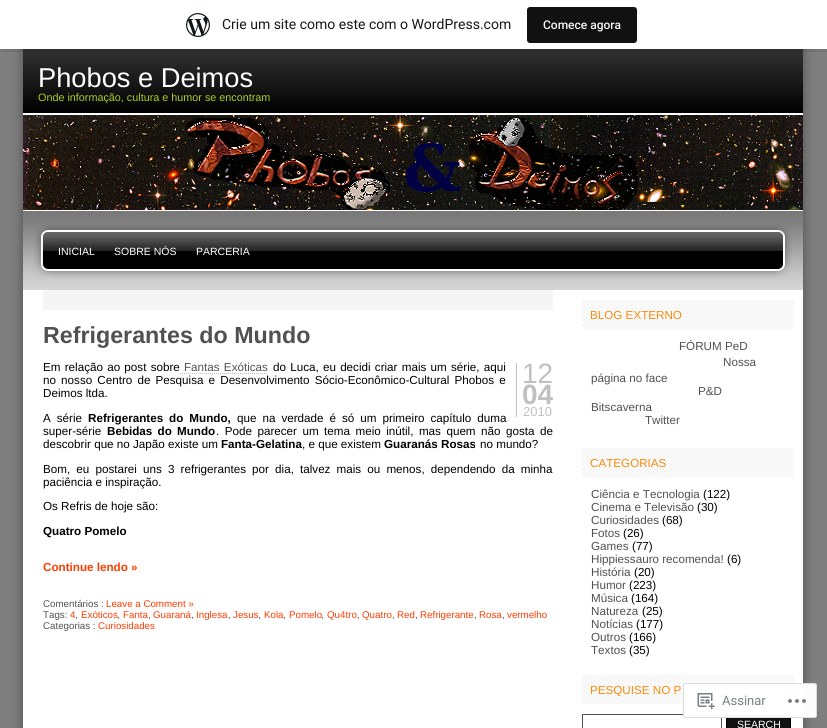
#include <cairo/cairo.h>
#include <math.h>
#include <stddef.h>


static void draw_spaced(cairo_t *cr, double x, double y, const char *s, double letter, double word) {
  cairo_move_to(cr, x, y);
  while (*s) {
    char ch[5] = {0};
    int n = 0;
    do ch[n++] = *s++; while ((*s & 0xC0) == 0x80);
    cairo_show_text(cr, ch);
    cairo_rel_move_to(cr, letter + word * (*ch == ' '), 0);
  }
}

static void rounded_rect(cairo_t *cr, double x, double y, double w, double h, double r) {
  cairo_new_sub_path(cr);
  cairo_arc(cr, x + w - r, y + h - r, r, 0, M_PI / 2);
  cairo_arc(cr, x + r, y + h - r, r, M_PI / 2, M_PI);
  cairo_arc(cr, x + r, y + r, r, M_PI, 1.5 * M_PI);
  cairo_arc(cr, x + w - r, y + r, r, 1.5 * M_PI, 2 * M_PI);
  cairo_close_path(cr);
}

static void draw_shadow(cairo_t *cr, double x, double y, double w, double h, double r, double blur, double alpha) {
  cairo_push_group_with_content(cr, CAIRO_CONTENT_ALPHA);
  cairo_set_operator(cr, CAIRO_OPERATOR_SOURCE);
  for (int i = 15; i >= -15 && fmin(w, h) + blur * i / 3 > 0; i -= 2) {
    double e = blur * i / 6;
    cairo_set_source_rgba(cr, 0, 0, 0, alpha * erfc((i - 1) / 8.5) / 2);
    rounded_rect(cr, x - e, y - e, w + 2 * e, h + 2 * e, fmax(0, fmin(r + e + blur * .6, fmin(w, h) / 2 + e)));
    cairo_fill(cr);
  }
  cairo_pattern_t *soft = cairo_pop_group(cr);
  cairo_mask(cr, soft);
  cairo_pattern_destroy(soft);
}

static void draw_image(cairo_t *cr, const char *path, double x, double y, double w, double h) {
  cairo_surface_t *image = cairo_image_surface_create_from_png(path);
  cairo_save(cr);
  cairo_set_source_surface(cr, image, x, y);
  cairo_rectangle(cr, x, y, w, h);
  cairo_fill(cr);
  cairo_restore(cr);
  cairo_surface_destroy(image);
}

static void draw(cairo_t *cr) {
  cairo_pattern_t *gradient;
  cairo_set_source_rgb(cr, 127 / 255.0, 127 / 255.0, 127 / 255.0);
  cairo_paint(cr);
  cairo_set_source_rgb(cr, 90 / 255.0, 90 / 255.0, 90 / 255.0);
  draw_shadow(cr, 21, 47, 784, 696, 0, 5, 1);
  gradient = cairo_pattern_create_linear(413, 49, 413, 113);
  cairo_pattern_add_color_stop_rgba(gradient, 0, 50 / 255.0, 50 / 255.0, 50 / 255.0, 1);
  cairo_pattern_add_color_stop_rgba(gradient, 1, 0, 0, 0, 1);
  cairo_set_source(cr, gradient);
  cairo_pattern_destroy(gradient);
  cairo_rectangle(cr, 23, 49, 780, 64);
  cairo_fill(cr);
  cairo_set_source_rgba(cr, 0, 0, 0, 0.08);
  cairo_new_path(cr);
  cairo_move_to(cr, 1, 49);
  cairo_line_to(cr, 1, 52);
  cairo_line_to(cr, 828, 52);
  cairo_line_to(cr, 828, 3);
  cairo_line_to(cr, 827, 3);
  cairo_line_to(cr, 827, 49);
  cairo_close_path(cr);
  cairo_fill(cr);
  cairo_set_source_rgb(cr, 1, 1, 1);
  cairo_rectangle(cr, 0, 0, 827, 49);
  cairo_fill(cr);
  draw_image(cr, "images/1.png", 186, 13, 24, 24);
  cairo_set_source_rgb(cr, 17 / 255.0, 17 / 255.0, 17 / 255.0);
  rounded_rect(cr, 527, 7, 110, 36, 3);
  cairo_fill(cr);
  cairo_set_source_rgb(cr, 1, 1, 1);
  cairo_rectangle(cr, 23, 113, 780, 2);
  cairo_fill(cr);
  draw_image(cr, "images/2.png", 23, 115, 780, 95);
  cairo_rectangle(cr, 23, 290, 780, 438);
  cairo_fill(cr);
  draw_image(cr, "images/3.png", 23, 211, 780, 79);
  cairo_rectangle(cr, 23, 210, 780, 1);
  cairo_fill(cr);
  draw_image(cr, "images/4.png", 23, 224, 27, 54);
  draw_image(cr, "images/5.png", 776, 224, 27, 54);
  cairo_set_source_rgb(cr, 245 / 255.0, 245 / 255.0, 245 / 255.0);
  cairo_rectangle(cr, 43, 290, 510, 20);
  cairo_fill(cr);
  cairo_new_path(cr);
  cairo_move_to(cr, 180, 373.5);
  cairo_line_to(cr, 268, 373.5);
  cairo_set_source_rgb(cr, 192 / 255.0, 192 / 255.0, 192 / 255.0);
  cairo_set_line_width(cr, 1);
  cairo_set_dash(cr, (double[]){1, 1}, 2, 0);
  cairo_stroke(cr);
  cairo_rectangle(cr, 516, 363, 1, 54);
  cairo_fill(cr);
  draw_image(cr, "images/6.png", 582, 300, 212, 29);
  draw_image(cr, "images/6.png", 582, 448, 212, 29);
  draw_image(cr, "images/6.png", 582, 675, 212, 29);
  cairo_rectangle(cr, 582.5, 714.5, 139, 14);
  cairo_set_source_rgb(cr, 81 / 255.0, 81 / 255.0, 81 / 255.0);
  cairo_set_dash(cr, NULL, 0, 0);
  cairo_stroke(cr);
  cairo_set_source_rgb(cr, 17 / 255.0, 17 / 255.0, 17 / 255.0);
  cairo_rectangle(cr, 726.5, 715.5, 64, 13);
  cairo_fill_preserve(cr);
  cairo_set_source_rgb(cr, 0, 0, 0);
  cairo_stroke(cr);
  cairo_set_source_rgba(cr, 1, 1, 1, 0.98);
  rounded_rect(cr, 683, 683, 134, 35, 3);
  cairo_fill(cr);
  rounded_rect(cr, 683.5, 683.5, 133, 34, 2.5);
  cairo_set_source_rgba(cr, 220 / 255.0, 220 / 255.0, 222 / 255.0, 0.98);
  cairo_stroke(cr);
  draw_image(cr, "images/7.png", 697, 693, 18, 17);
  draw_image(cr, "images/8.png", 788, 699, 18, 4);
  cairo_select_font_face(cr, "Roboto", CAIRO_FONT_SLANT_NORMAL, CAIRO_FONT_WEIGHT_NORMAL);
  cairo_set_font_size(cr, 14);
  cairo_set_source_rgb(cr, 23 / 255.0, 23 / 255.0, 23 / 255.0);
  cairo_move_to(cr, 222, 29);
  cairo_show_text(cr, "Crie um site como este com o WordPress.com");
  cairo_select_font_face(cr, "Roboto Medium", CAIRO_FONT_SLANT_NORMAL, CAIRO_FONT_WEIGHT_NORMAL);
  cairo_set_font_size(cr, 12);
  cairo_set_source_rgb(cr, 246 / 255.0, 247 / 255.0, 247 / 255.0);
  cairo_move_to(cr, 543, 29);
  cairo_show_text(cr, "Comece agora");
  cairo_select_font_face(cr, "Liberation Sans", CAIRO_FONT_SLANT_NORMAL, CAIRO_FONT_WEIGHT_NORMAL);
  cairo_set_font_size(cr, 27.25);
  cairo_set_source_rgb(cr, 1, 1, 1);
  cairo_move_to(cr, 38, 87);
  cairo_show_text(cr, "Phobos e Deimos");
  cairo_set_font_size(cr, 10.8);
  cairo_set_source_rgb(cr, 173 / 255.0, 207 / 255.0, 32 / 255.0);
  cairo_move_to(cr, 38, 101);
  cairo_show_text(cr, "Onde informação, cultura e humor se encontram");
  cairo_set_font_size(cr, 10.5);
  cairo_set_source_rgb(cr, 1, 1, 1);
  cairo_move_to(cr, 58, 255);
  cairo_show_text(cr, "INICIAL");
  cairo_move_to(cr, 114, 255);
  cairo_show_text(cr, "SOBRE NÓS");
  cairo_move_to(cr, 196, 255);
  cairo_show_text(cr, "PARCERIA");
  cairo_select_font_face(cr, "Liberation Sans", CAIRO_FONT_SLANT_NORMAL, CAIRO_FONT_WEIGHT_BOLD);
  cairo_set_font_size(cr, 23.25);
  cairo_set_source_rgb(cr, 81 / 255.0, 81 / 255.0, 81 / 255.0);
  cairo_move_to(cr, 43, 343);
  cairo_show_text(cr, "Refrigerantes do Mundo");
  cairo_select_font_face(cr, "Liberation Sans", CAIRO_FONT_SLANT_NORMAL, CAIRO_FONT_WEIGHT_NORMAL);
  cairo_set_font_size(cr, 11.65);
  cairo_set_source_rgb(cr, 0, 0, 0);
  draw_spaced(cr, 43, 371, "Em relação ao post sobre", 0, 1);
  cairo_set_source_rgb(cr, 81 / 255.0, 81 / 255.0, 81 / 255.0);
  draw_spaced(cr, 184, 371, "Fantas Exóticas", 0, 1);
  cairo_set_source_rgb(cr, 0, 0, 0);
  draw_spaced(cr, 273, 371, "do Luca, eu decidi criar mais um série, aqui", 0, 1);
  draw_spaced(cr, 43, 384, "no nosso Centro de Pesquisa e Desenvolvimento Sócio-Econômico-Cultural Phobos e", 0, 1.9);
  cairo_move_to(cr, 43, 397);
  cairo_show_text(cr, "Deimos ltda.");
  draw_spaced(cr, 43, 422, "A série", 0, 2.75);
  cairo_select_font_face(cr, "Liberation Sans", CAIRO_FONT_SLANT_NORMAL, CAIRO_FONT_WEIGHT_BOLD);
  draw_spaced(cr, 88, 422, "Refrigerantes do Mundo,", 0, 2.75);
  cairo_select_font_face(cr, "Liberation Sans", CAIRO_FONT_SLANT_NORMAL, CAIRO_FONT_WEIGHT_NORMAL);
  draw_spaced(cr, 237, 422, "que na verdade é só um primeiro capítulo duma", 0, 2.75);
  cairo_move_to(cr, 43, 435);
  cairo_show_text(cr, "super-série");
  cairo_select_font_face(cr, "Liberation Sans", CAIRO_FONT_SLANT_NORMAL, CAIRO_FONT_WEIGHT_BOLD);
  draw_spaced(cr, 107, 435, "Bebidas do Mundo", 0, 2);
  cairo_select_font_face(cr, "Liberation Sans", CAIRO_FONT_SLANT_NORMAL, CAIRO_FONT_WEIGHT_NORMAL);
  draw_spaced(cr, 216, 435, ". Pode parecer um tema meio inútil, mas quem não gosta de", 0, 2.25);
  cairo_move_to(cr, 43, 448);
  cairo_show_text(cr, "descobrir que no Japão existe um");
  cairo_select_font_face(cr, "Liberation Sans", CAIRO_FONT_SLANT_NORMAL, CAIRO_FONT_WEIGHT_BOLD);
  cairo_move_to(cr, 221, 448);
  cairo_show_text(cr, "Fanta-Gelatina");
  cairo_select_font_face(cr, "Liberation Sans", CAIRO_FONT_SLANT_NORMAL, CAIRO_FONT_WEIGHT_NORMAL);
  cairo_move_to(cr, 302, 448);
  cairo_show_text(cr, ", e que existem");
  cairo_select_font_face(cr, "Liberation Sans", CAIRO_FONT_SLANT_NORMAL, CAIRO_FONT_WEIGHT_BOLD);
  cairo_move_to(cr, 384, 448);
  cairo_show_text(cr, "Guaranás Rosas");
  cairo_select_font_face(cr, "Liberation Sans", CAIRO_FONT_SLANT_NORMAL, CAIRO_FONT_WEIGHT_NORMAL);
  cairo_move_to(cr, 480, 448);
  cairo_show_text(cr, "no mundo?");
  draw_spaced(cr, 43, 473, "Bom, eu postarei uns 3 refrigerantes por dia, talvez mais ou menos, dependendo da minha", 0, 2.9);
  cairo_move_to(cr, 43, 486);
  cairo_show_text(cr, "paciência e inspiração.");
  cairo_move_to(cr, 43, 510);
  cairo_show_text(cr, "Os Refris de hoje são:");
  cairo_select_font_face(cr, "Liberation Sans", CAIRO_FONT_SLANT_NORMAL, CAIRO_FONT_WEIGHT_BOLD);
  cairo_move_to(cr, 43, 535);
  cairo_show_text(cr, "Quatro Pomelo");
  cairo_set_source_rgb(cr, 1, 60 / 255.0, 0);
  cairo_move_to(cr, 43, 571);
  cairo_show_text(cr, "Continue lendo »");
  cairo_select_font_face(cr, "Liberation Sans", CAIRO_FONT_SLANT_NORMAL, CAIRO_FONT_WEIGHT_NORMAL);
  cairo_set_font_size(cr, 28);
  cairo_set_source_rgb(cr, 192 / 255.0, 192 / 255.0, 192 / 255.0);
  cairo_move_to(cr, 522, 383);
  cairo_show_text(cr, "12");
  cairo_select_font_face(cr, "Liberation Sans", CAIRO_FONT_SLANT_NORMAL, CAIRO_FONT_WEIGHT_BOLD);
  cairo_move_to(cr, 522, 404);
  cairo_show_text(cr, "04");
  cairo_select_font_face(cr, "Liberation Sans", CAIRO_FONT_SLANT_NORMAL, CAIRO_FONT_WEIGHT_NORMAL);
  cairo_set_font_size(cr, 13);
  cairo_move_to(cr, 523, 416);
  cairo_show_text(cr, "2010");
  cairo_set_font_size(cr, 9.75);
  cairo_set_source_rgb(cr, 81 / 255.0, 81 / 255.0, 81 / 255.0);
  cairo_move_to(cr, 43, 607);
  cairo_show_text(cr, "Comentários :");
  cairo_set_source_rgb(cr, 1, 60 / 255.0, 0);
  cairo_move_to(cr, 106, 607);
  cairo_show_text(cr, "Leave a Comment »");
  cairo_set_source_rgb(cr, 81 / 255.0, 81 / 255.0, 81 / 255.0);
  cairo_move_to(cr, 43, 618);
  cairo_show_text(cr, "Tags:");
  cairo_set_source_rgb(cr, 1, 60 / 255.0, 0);
  cairo_move_to(cr, 70, 618);
  cairo_show_text(cr, "4");
  cairo_set_source_rgb(cr, 81 / 255.0, 81 / 255.0, 81 / 255.0);
  cairo_move_to(cr, 75, 618);
  cairo_show_text(cr, ",");
  cairo_set_source_rgb(cr, 1, 60 / 255.0, 0);
  cairo_move_to(cr, 81, 618);
  cairo_show_text(cr, "Exóticos");
  cairo_set_source_rgb(cr, 81 / 255.0, 81 / 255.0, 81 / 255.0);
  cairo_move_to(cr, 117, 618);
  cairo_show_text(cr, ",");
  cairo_set_source_rgb(cr, 1, 60 / 255.0, 0);
  cairo_move_to(cr, 123, 618);
  cairo_show_text(cr, "Fanta");
  cairo_set_source_rgb(cr, 81 / 255.0, 81 / 255.0, 81 / 255.0);
  cairo_move_to(cr, 148, 618);
  cairo_show_text(cr, ",");
  cairo_set_source_rgb(cr, 1, 60 / 255.0, 0);
  cairo_move_to(cr, 153, 618);
  cairo_show_text(cr, "Guaraná");
  cairo_set_source_rgb(cr, 81 / 255.0, 81 / 255.0, 81 / 255.0);
  cairo_move_to(cr, 191, 618);
  cairo_show_text(cr, ",");
  cairo_set_source_rgb(cr, 1, 60 / 255.0, 0);
  cairo_move_to(cr, 196, 618);
  cairo_show_text(cr, "Inglesa");
  cairo_set_source_rgb(cr, 81 / 255.0, 81 / 255.0, 81 / 255.0);
  cairo_move_to(cr, 228, 618);
  cairo_show_text(cr, ",");
  cairo_set_source_rgb(cr, 1, 60 / 255.0, 0);
  cairo_move_to(cr, 233, 618);
  cairo_show_text(cr, "Jesus");
  cairo_set_source_rgb(cr, 81 / 255.0, 81 / 255.0, 81 / 255.0);
  cairo_move_to(cr, 258, 618);
  cairo_show_text(cr, ",");
  cairo_set_source_rgb(cr, 1, 60 / 255.0, 0);
  cairo_move_to(cr, 264, 618);
  cairo_show_text(cr, "Kola");
  cairo_set_source_rgb(cr, 81 / 255.0, 81 / 255.0, 81 / 255.0);
  cairo_move_to(cr, 283, 618);
  cairo_show_text(cr, ",");
  cairo_set_source_rgb(cr, 1, 60 / 255.0, 0);
  cairo_move_to(cr, 289, 618);
  cairo_show_text(cr, "Pomelo");
  cairo_set_source_rgb(cr, 81 / 255.0, 81 / 255.0, 81 / 255.0);
  cairo_move_to(cr, 321, 618);
  cairo_show_text(cr, ",");
  cairo_set_source_rgb(cr, 1, 60 / 255.0, 0);
  cairo_move_to(cr, 327, 618);
  cairo_show_text(cr, "Qu4tro");
  cairo_set_source_rgb(cr, 81 / 255.0, 81 / 255.0, 81 / 255.0);
  cairo_move_to(cr, 357, 618);
  cairo_show_text(cr, ",");
  cairo_set_source_rgb(cr, 1, 60 / 255.0, 0);
  cairo_move_to(cr, 362, 618);
  cairo_show_text(cr, "Quatro");
  cairo_set_source_rgb(cr, 81 / 255.0, 81 / 255.0, 81 / 255.0);
  cairo_move_to(cr, 392, 618);
  cairo_show_text(cr, ",");
  cairo_set_source_rgb(cr, 1, 60 / 255.0, 0);
  cairo_move_to(cr, 397, 618);
  cairo_show_text(cr, "Red");
  cairo_set_source_rgb(cr, 81 / 255.0, 81 / 255.0, 81 / 255.0);
  cairo_move_to(cr, 415, 618);
  cairo_show_text(cr, ",");
  cairo_set_source_rgb(cr, 1, 60 / 255.0, 0);
  cairo_move_to(cr, 420, 618);
  cairo_show_text(cr, "Refrigerante");
  cairo_set_source_rgb(cr, 81 / 255.0, 81 / 255.0, 81 / 255.0);
  cairo_move_to(cr, 474, 618);
  cairo_show_text(cr, ",");
  cairo_set_source_rgb(cr, 1, 60 / 255.0, 0);
  cairo_move_to(cr, 479, 618);
  cairo_show_text(cr, "Rosa");
  cairo_set_source_rgb(cr, 81 / 255.0, 81 / 255.0, 81 / 255.0);
  cairo_move_to(cr, 502, 618);
  cairo_show_text(cr, ",");
  cairo_set_source_rgb(cr, 1, 60 / 255.0, 0);
  cairo_move_to(cr, 507, 618);
  cairo_show_text(cr, "vermelho");
  cairo_set_source_rgb(cr, 81 / 255.0, 81 / 255.0, 81 / 255.0);
  cairo_move_to(cr, 43, 629);
  cairo_show_text(cr, "Categorias :");
  cairo_set_source_rgb(cr, 1, 60 / 255.0, 0);
  cairo_move_to(cr, 98, 629);
  cairo_show_text(cr, "Curiosidades");
  cairo_set_font_size(cr, 11.65);
  cairo_set_source_rgb(cr, 247 / 255.0, 139 / 255.0, 12 / 255.0);
  cairo_move_to(cr, 590, 319);
  cairo_show_text(cr, "BLOG EXTERNO");
  cairo_set_source_rgb(cr, 81 / 255.0, 81 / 255.0, 81 / 255.0);
  cairo_move_to(cr, 679, 350);
  cairo_show_text(cr, "FÓRUM PeD");
  cairo_move_to(cr, 723, 366);
  cairo_show_text(cr, "Nossa");
  cairo_move_to(cr, 591, 382);
  cairo_show_text(cr, "página no face");
  cairo_move_to(cr, 698, 395);
  cairo_show_text(cr, "P&D");
  cairo_move_to(cr, 591, 411);
  cairo_show_text(cr, "Bitscaverna");
  cairo_move_to(cr, 645, 424);
  cairo_show_text(cr, "Twitter");
  cairo_set_source_rgb(cr, 247 / 255.0, 139 / 255.0, 12 / 255.0);
  cairo_move_to(cr, 590, 467);
  cairo_show_text(cr, "CATEGORIAS");
  cairo_set_source_rgb(cr, 81 / 255.0, 81 / 255.0, 81 / 255.0);
  cairo_move_to(cr, 591, 498);
  cairo_show_text(cr, "Ciência e Tecnologia");
  cairo_set_source_rgb(cr, 0, 0, 0);
  cairo_move_to(cr, 703, 498);
  cairo_show_text(cr, "(122)");
  cairo_set_source_rgb(cr, 81 / 255.0, 81 / 255.0, 81 / 255.0);
  cairo_move_to(cr, 591, 511);
  cairo_show_text(cr, "Cinema e Televisão");
  cairo_set_source_rgb(cr, 0, 0, 0);
  cairo_move_to(cr, 697, 511);
  cairo_show_text(cr, "(30)");
  cairo_set_source_rgb(cr, 81 / 255.0, 81 / 255.0, 81 / 255.0);
  cairo_move_to(cr, 591, 524);
  cairo_show_text(cr, "Curiosidades");
  cairo_set_source_rgb(cr, 0, 0, 0);
  cairo_move_to(cr, 662, 524);
  cairo_show_text(cr, "(68)");
  cairo_set_source_rgb(cr, 81 / 255.0, 81 / 255.0, 81 / 255.0);
  cairo_move_to(cr, 591, 537);
  cairo_show_text(cr, "Fotos");
  cairo_set_source_rgb(cr, 0, 0, 0);
  cairo_move_to(cr, 623, 537);
  cairo_show_text(cr, "(26)");
  cairo_set_source_rgb(cr, 81 / 255.0, 81 / 255.0, 81 / 255.0);
  cairo_move_to(cr, 591, 550);
  cairo_show_text(cr, "Games");
  cairo_set_source_rgb(cr, 0, 0, 0);
  cairo_move_to(cr, 632, 550);
  cairo_show_text(cr, "(77)");
  cairo_set_source_rgb(cr, 81 / 255.0, 81 / 255.0, 81 / 255.0);
  cairo_move_to(cr, 591, 563);
  cairo_show_text(cr, "Hippiessauro recomenda!");
  cairo_set_source_rgb(cr, 0, 0, 0);
  cairo_move_to(cr, 727, 563);
  cairo_show_text(cr, "(6)");
  cairo_set_source_rgb(cr, 81 / 255.0, 81 / 255.0, 81 / 255.0);
  cairo_move_to(cr, 591, 576);
  cairo_show_text(cr, "História");
  cairo_set_source_rgb(cr, 0, 0, 0);
  cairo_move_to(cr, 634, 576);
  cairo_show_text(cr, "(20)");
  cairo_set_source_rgb(cr, 81 / 255.0, 81 / 255.0, 81 / 255.0);
  cairo_move_to(cr, 591, 589);
  cairo_show_text(cr, "Humor");
  cairo_set_source_rgb(cr, 0, 0, 0);
  cairo_move_to(cr, 629, 589);
  cairo_show_text(cr, "(223)");
  cairo_set_source_rgb(cr, 81 / 255.0, 81 / 255.0, 81 / 255.0);
  cairo_move_to(cr, 591, 602);
  cairo_show_text(cr, "Música");
  cairo_set_source_rgb(cr, 0, 0, 0);
  cairo_move_to(cr, 631, 602);
  cairo_show_text(cr, "(164)");
  cairo_set_source_rgb(cr, 81 / 255.0, 81 / 255.0, 81 / 255.0);
  cairo_move_to(cr, 591, 615);
  cairo_show_text(cr, "Natureza");
  cairo_set_source_rgb(cr, 0, 0, 0);
  cairo_move_to(cr, 642, 615);
  cairo_show_text(cr, "(25)");
  cairo_set_source_rgb(cr, 81 / 255.0, 81 / 255.0, 81 / 255.0);
  cairo_move_to(cr, 591, 628);
  cairo_show_text(cr, "Notícias");
  cairo_set_source_rgb(cr, 0, 0, 0);
  cairo_move_to(cr, 636, 628);
  cairo_show_text(cr, "(177)");
  cairo_set_source_rgb(cr, 81 / 255.0, 81 / 255.0, 81 / 255.0);
  cairo_move_to(cr, 591, 641);
  cairo_show_text(cr, "Outros");
  cairo_set_source_rgb(cr, 0, 0, 0);
  cairo_move_to(cr, 629, 641);
  cairo_show_text(cr, "(166)");
  cairo_set_source_rgb(cr, 81 / 255.0, 81 / 255.0, 81 / 255.0);
  cairo_move_to(cr, 591, 654);
  cairo_show_text(cr, "Textos");
  cairo_set_source_rgb(cr, 0, 0, 0);
  cairo_move_to(cr, 629, 654);
  cairo_show_text(cr, "(35)");
  cairo_set_source_rgb(cr, 247 / 255.0, 139 / 255.0, 12 / 255.0);
  cairo_move_to(cr, 590, 694);
  cairo_show_text(cr, "PESQUISE NO P");
  cairo_set_font_size(cr, 10.5);
  cairo_set_source_rgb(cr, 1, 1, 1);
  cairo_move_to(cr, 737, 728);
  cairo_show_text(cr, "SEARCH");
  cairo_select_font_face(cr, "Roboto", CAIRO_FONT_SLANT_NORMAL, CAIRO_FONT_WEIGHT_NORMAL);
  cairo_set_font_size(cr, 13);
  cairo_set_source_rgb(cr, 123 / 255.0, 127 / 255.0, 132 / 255.0);
  cairo_move_to(cr, 722, 705);
  cairo_show_text(cr, "Assinar");
}

int main(void) {
  cairo_surface_t *surface = cairo_image_surface_create(CAIRO_FORMAT_RGB24, 827, 728);
  cairo_t *cr = cairo_create(surface);
  cairo_font_options_t *options = cairo_font_options_create();
  cairo_font_options_set_hint_metrics(options, CAIRO_HINT_METRICS_OFF);
  cairo_font_options_set_hint_style(options, CAIRO_HINT_STYLE_NONE);
  cairo_set_font_options(cr, options);
  cairo_set_miter_limit(cr, 4);
  draw(cr);
  cairo_surface_write_to_png(surface, "out.png");
  cairo_font_options_destroy(options);
  cairo_destroy(cr);
  cairo_surface_destroy(surface);
  return 0;
}
